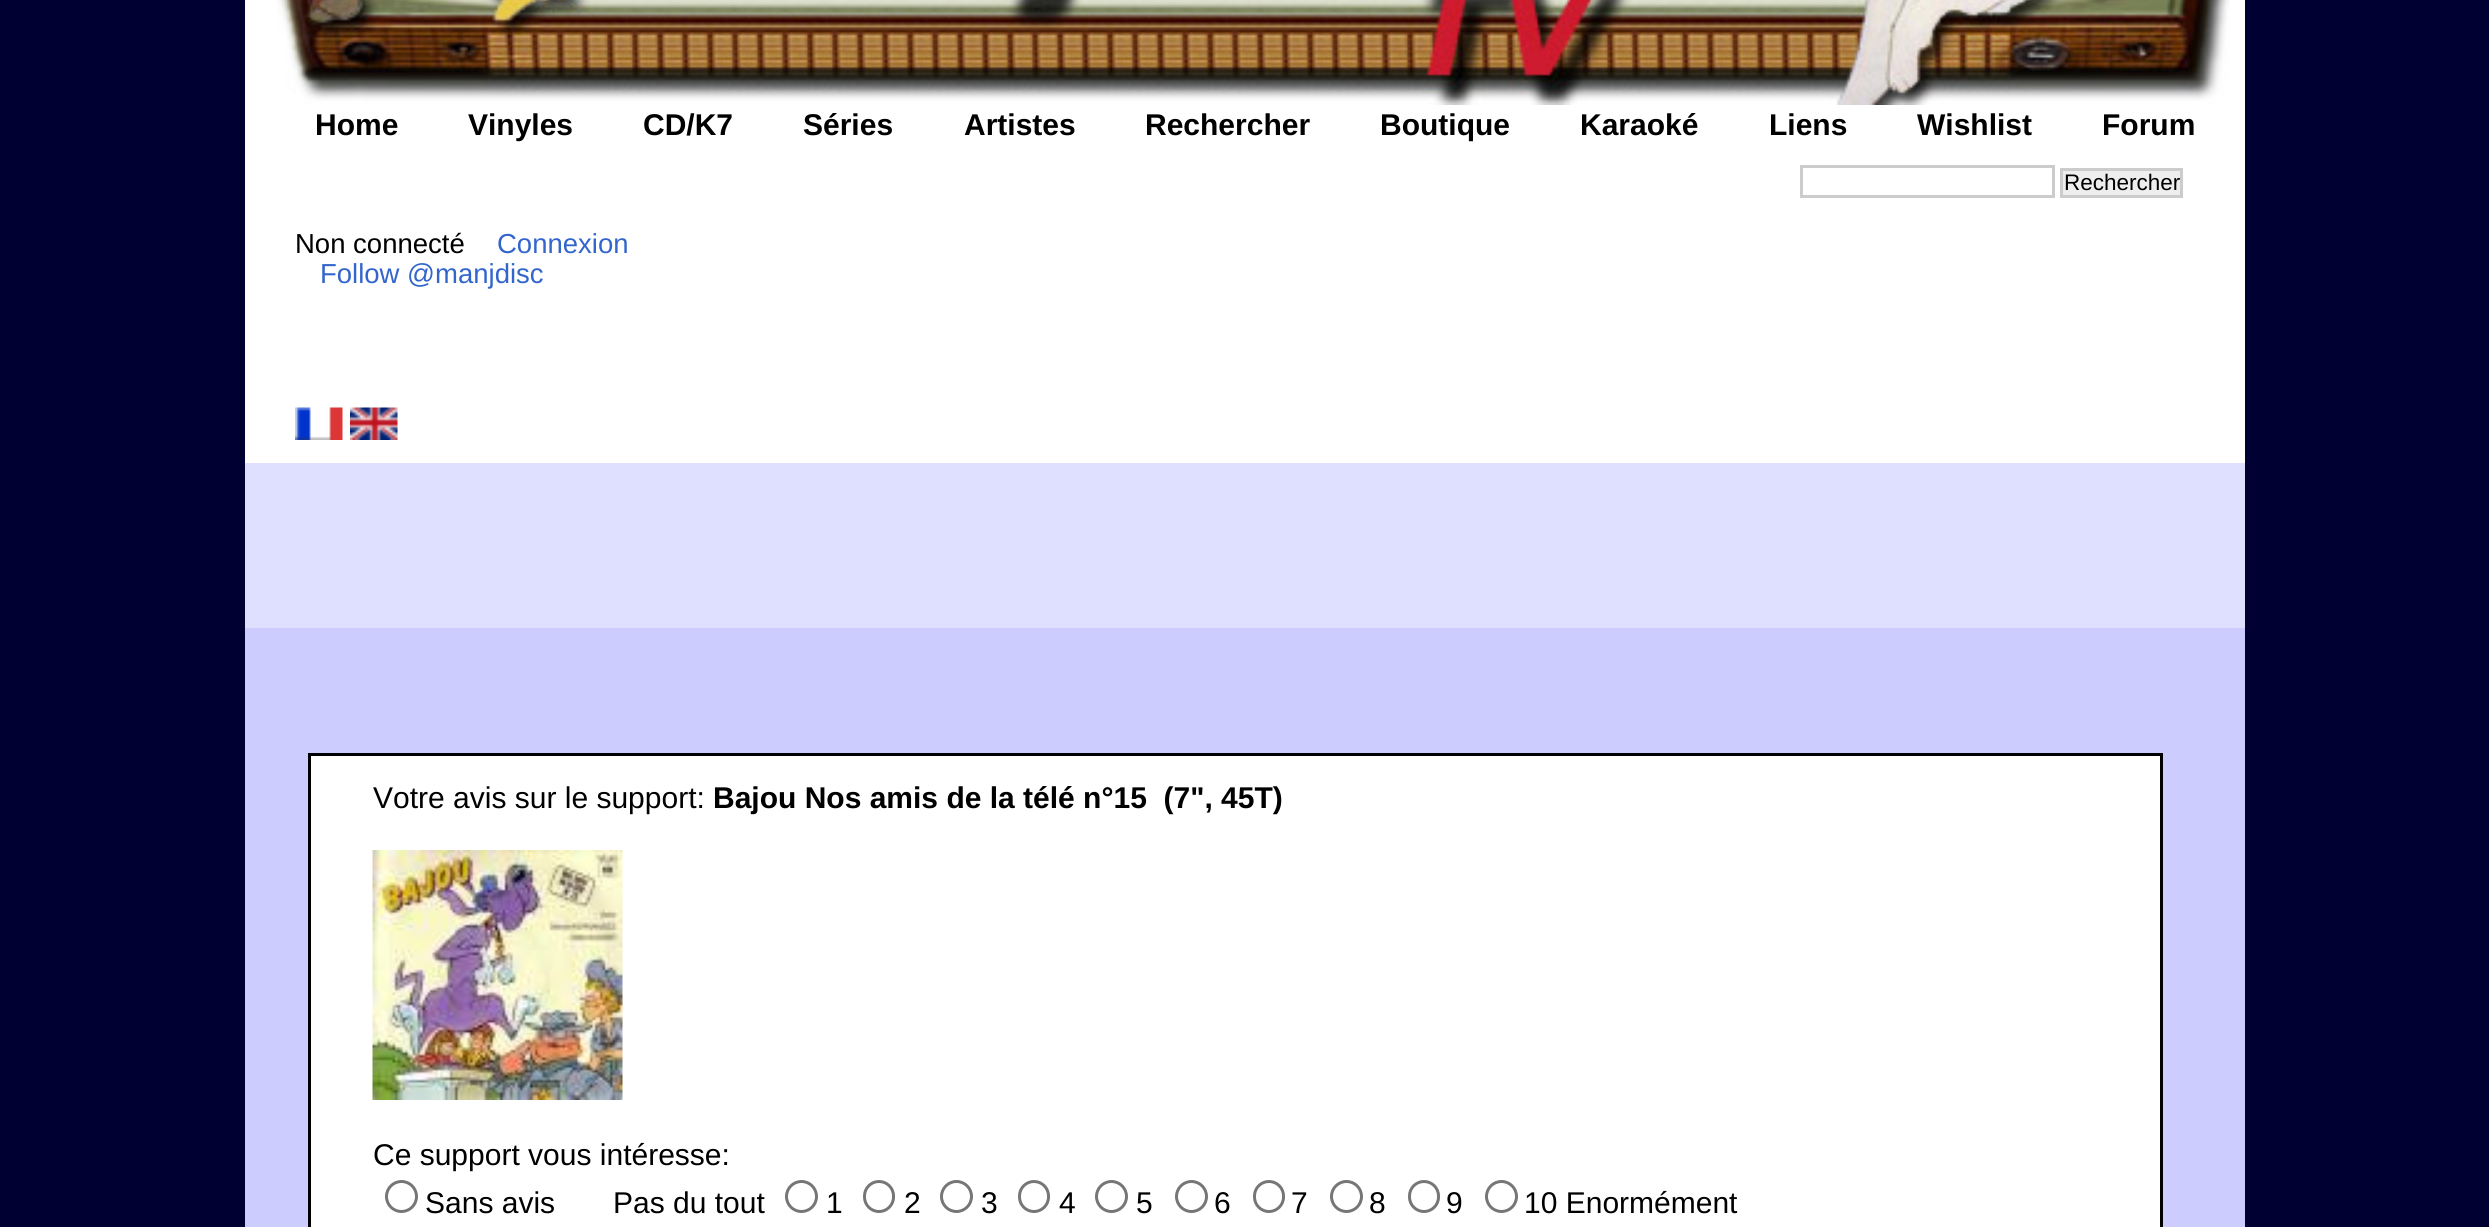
#include <cairo/cairo.h>
#include <math.h>
#include <stddef.h>


static void rounded_rect(cairo_t *cr, double x, double y, double w, double h, double r) {
  cairo_new_sub_path(cr);
  cairo_arc(cr, x + w - r, y + h - r, r, 0, M_PI / 2);
  cairo_arc(cr, x + r, y + h - r, r, M_PI / 2, M_PI);
  cairo_arc(cr, x + r, y + r, r, M_PI, 1.5 * M_PI);
  cairo_arc(cr, x + w - r, y + r, r, 1.5 * M_PI, 2 * M_PI);
  cairo_close_path(cr);
}

static void draw_image(cairo_t *cr, const char *path, double x, double y, double w, double h) {
  cairo_surface_t *image = cairo_image_surface_create_from_png(path);
  cairo_save(cr);
  cairo_set_source_surface(cr, image, x, y);
  cairo_rectangle(cr, x, y, w, h);
  cairo_fill(cr);
  cairo_restore(cr);
  cairo_surface_destroy(image);
}

static void draw(cairo_t *cr) {
  cairo_set_source_rgb(cr, 0, 0, 51 / 255.0);
  cairo_paint(cr);
  cairo_set_source_rgb(cr, 223 / 255.0, 223 / 255.0, 1);
  cairo_rectangle(cr, 245, 463, 2000, 165);
  cairo_fill(cr);
  cairo_set_source_rgb(cr, 1, 1, 1);
  cairo_rectangle(cr, 245, 0, 2000, 463);
  cairo_fill(cr);
  draw_image(cr, "images/1.png", 277, 0, 1953, 105);
  cairo_rectangle(cr, 1801.5, 166.5, 252, 30);
  cairo_set_source_rgb(cr, 204 / 255.0, 204 / 255.0, 204 / 255.0);
  cairo_set_line_width(cr, 3);
  cairo_stroke(cr);
  cairo_set_source_rgb(cr, 238 / 255.0, 238 / 255.0, 238 / 255.0);
  cairo_rectangle(cr, 2061.5, 169.5, 120, 27);
  cairo_fill_preserve(cr);
  cairo_set_source_rgb(cr, 204 / 255.0, 204 / 255.0, 204 / 255.0);
  cairo_stroke(cr);
  draw_image(cr, "images/2.png", 295, 407, 48, 33);
  draw_image(cr, "images/3.png", 350, 407, 48, 33);
  cairo_set_source_rgb(cr, 204 / 255.0, 204 / 255.0, 1);
  cairo_rectangle(cr, 245, 628, 2000, 599);
  cairo_fill(cr);
  cairo_set_source_rgb(cr, 1, 1, 1);
  cairo_rectangle(cr, 309.5, 754.5, 1852, 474);
  cairo_fill_preserve(cr);
  cairo_set_source_rgb(cr, 0, 0, 0);
  cairo_stroke(cr);
  draw_image(cr, "images/4.png", 372, 850, 251, 250);
  cairo_arc(cr, 401.5, 1196.5, 15, 0, 2 * M_PI);
  cairo_set_source_rgb(cr, 118 / 255.0, 118 / 255.0, 118 / 255.0);
  cairo_stroke(cr);
  cairo_arc(cr, 801.5, 1196.5, 15, 0, 2 * M_PI);
  cairo_stroke(cr);
  rounded_rect(cr, 864.5, 1181.5, 29, 30, 14.5);
  cairo_stroke(cr);
  cairo_arc(cr, 956.5, 1196.5, 15, 0, 2 * M_PI);
  cairo_stroke(cr);
  rounded_rect(cr, 1019.5, 1181.5, 29, 30, 14.5);
  cairo_stroke(cr);
  cairo_arc(cr, 1111.5, 1196.5, 15, 0, 2 * M_PI);
  cairo_stroke(cr);
  cairo_arc(cr, 1191.5, 1196.5, 15, 0, 2 * M_PI);
  cairo_stroke(cr);
  rounded_rect(cr, 1254.5, 1181.5, 29, 30, 14.5);
  cairo_stroke(cr);
  cairo_arc(cr, 1346.5, 1196.5, 15, 0, 2 * M_PI);
  cairo_stroke(cr);
  rounded_rect(cr, 1409.5, 1181.5, 29, 30, 14.5);
  cairo_stroke(cr);
  cairo_arc(cr, 1501.5, 1196.5, 15, 0, 2 * M_PI);
  cairo_stroke(cr);
  cairo_select_font_face(cr, "Liberation Sans", CAIRO_FONT_SLANT_NORMAL, CAIRO_FONT_WEIGHT_BOLD);
  cairo_set_font_size(cr, 30);
  cairo_set_source_rgb(cr, 0, 0, 0);
  cairo_move_to(cr, 315, 135);
  cairo_show_text(cr, "Home");
  cairo_move_to(cr, 468, 135);
  cairo_show_text(cr, "Vinyles");
  cairo_move_to(cr, 643, 135);
  cairo_show_text(cr, "CD/K7");
  cairo_move_to(cr, 803, 135);
  cairo_show_text(cr, "Séries");
  cairo_move_to(cr, 964, 135);
  cairo_show_text(cr, "Artistes");
  cairo_move_to(cr, 1145, 135);
  cairo_show_text(cr, "Rechercher");
  cairo_move_to(cr, 1380, 135);
  cairo_show_text(cr, "Boutique");
  cairo_move_to(cr, 1580, 135);
  cairo_show_text(cr, "Karaoké");
  cairo_move_to(cr, 1769, 135);
  cairo_show_text(cr, "Liens");
  cairo_move_to(cr, 1917, 135);
  cairo_show_text(cr, "Wishlist");
  cairo_move_to(cr, 2102, 135);
  cairo_show_text(cr, "Forum");
  cairo_select_font_face(cr, "Liberation Sans", CAIRO_FONT_SLANT_NORMAL, CAIRO_FONT_WEIGHT_NORMAL);
  cairo_set_font_size(cr, 22.5);
  cairo_move_to(cr, 2064, 190);
  cairo_show_text(cr, "Rechercher");
  cairo_set_font_size(cr, 27.5);
  cairo_move_to(cr, 295, 253);
  cairo_show_text(cr, "Non connecté");
  cairo_set_source_rgb(cr, 51 / 255.0, 102 / 255.0, 204 / 255.0);
  cairo_move_to(cr, 497, 253);
  cairo_show_text(cr, "Connexion");
  cairo_move_to(cr, 320, 283);
  cairo_show_text(cr, "Follow @manjdisc");
  cairo_set_font_size(cr, 30);
  cairo_set_source_rgb(cr, 0, 0, 0);
  cairo_move_to(cr, 373, 808);
  cairo_show_text(cr, "Votre avis sur le support:");
  cairo_select_font_face(cr, "Liberation Sans", CAIRO_FONT_SLANT_NORMAL, CAIRO_FONT_WEIGHT_BOLD);
  cairo_move_to(cr, 713, 808);
  cairo_show_text(cr, "Bajou Nos amis de la télé n°15  (7\", 45T)");
  cairo_select_font_face(cr, "Liberation Sans", CAIRO_FONT_SLANT_NORMAL, CAIRO_FONT_WEIGHT_NORMAL);
  cairo_move_to(cr, 373, 1165);
  cairo_show_text(cr, "Ce support vous intéresse:");
  cairo_move_to(cr, 425, 1213);
  cairo_show_text(cr, "Sans avis");
  cairo_move_to(cr, 613, 1213);
  cairo_show_text(cr, "Pas du tout");
  cairo_move_to(cr, 826, 1213);
  cairo_show_text(cr, "1");
  cairo_move_to(cr, 904, 1213);
  cairo_show_text(cr, "2");
  cairo_move_to(cr, 981, 1213);
  cairo_show_text(cr, "3");
  cairo_move_to(cr, 1059, 1213);
  cairo_show_text(cr, "4");
  cairo_move_to(cr, 1136, 1213);
  cairo_show_text(cr, "5");
  cairo_move_to(cr, 1214, 1213);
  cairo_show_text(cr, "6");
  cairo_move_to(cr, 1291, 1213);
  cairo_show_text(cr, "7");
  cairo_move_to(cr, 1369, 1213);
  cairo_show_text(cr, "8");
  cairo_move_to(cr, 1446, 1213);
  cairo_show_text(cr, "9");
  cairo_move_to(cr, 1524, 1213);
  cairo_show_text(cr, "10 Enormément");
}

int main(void) {
  cairo_surface_t *surface = cairo_image_surface_create(CAIRO_FORMAT_RGB24, 2489, 1227);
  cairo_t *cr = cairo_create(surface);
  cairo_font_options_t *options = cairo_font_options_create();
  cairo_font_options_set_hint_metrics(options, CAIRO_HINT_METRICS_OFF);
  cairo_font_options_set_hint_style(options, CAIRO_HINT_STYLE_NONE);
  cairo_set_font_options(cr, options);
  cairo_set_miter_limit(cr, 4);
  draw(cr);
  cairo_surface_write_to_png(surface, "out.png");
  cairo_font_options_destroy(options);
  cairo_destroy(cr);
  cairo_surface_destroy(surface);
  return 0;
}
